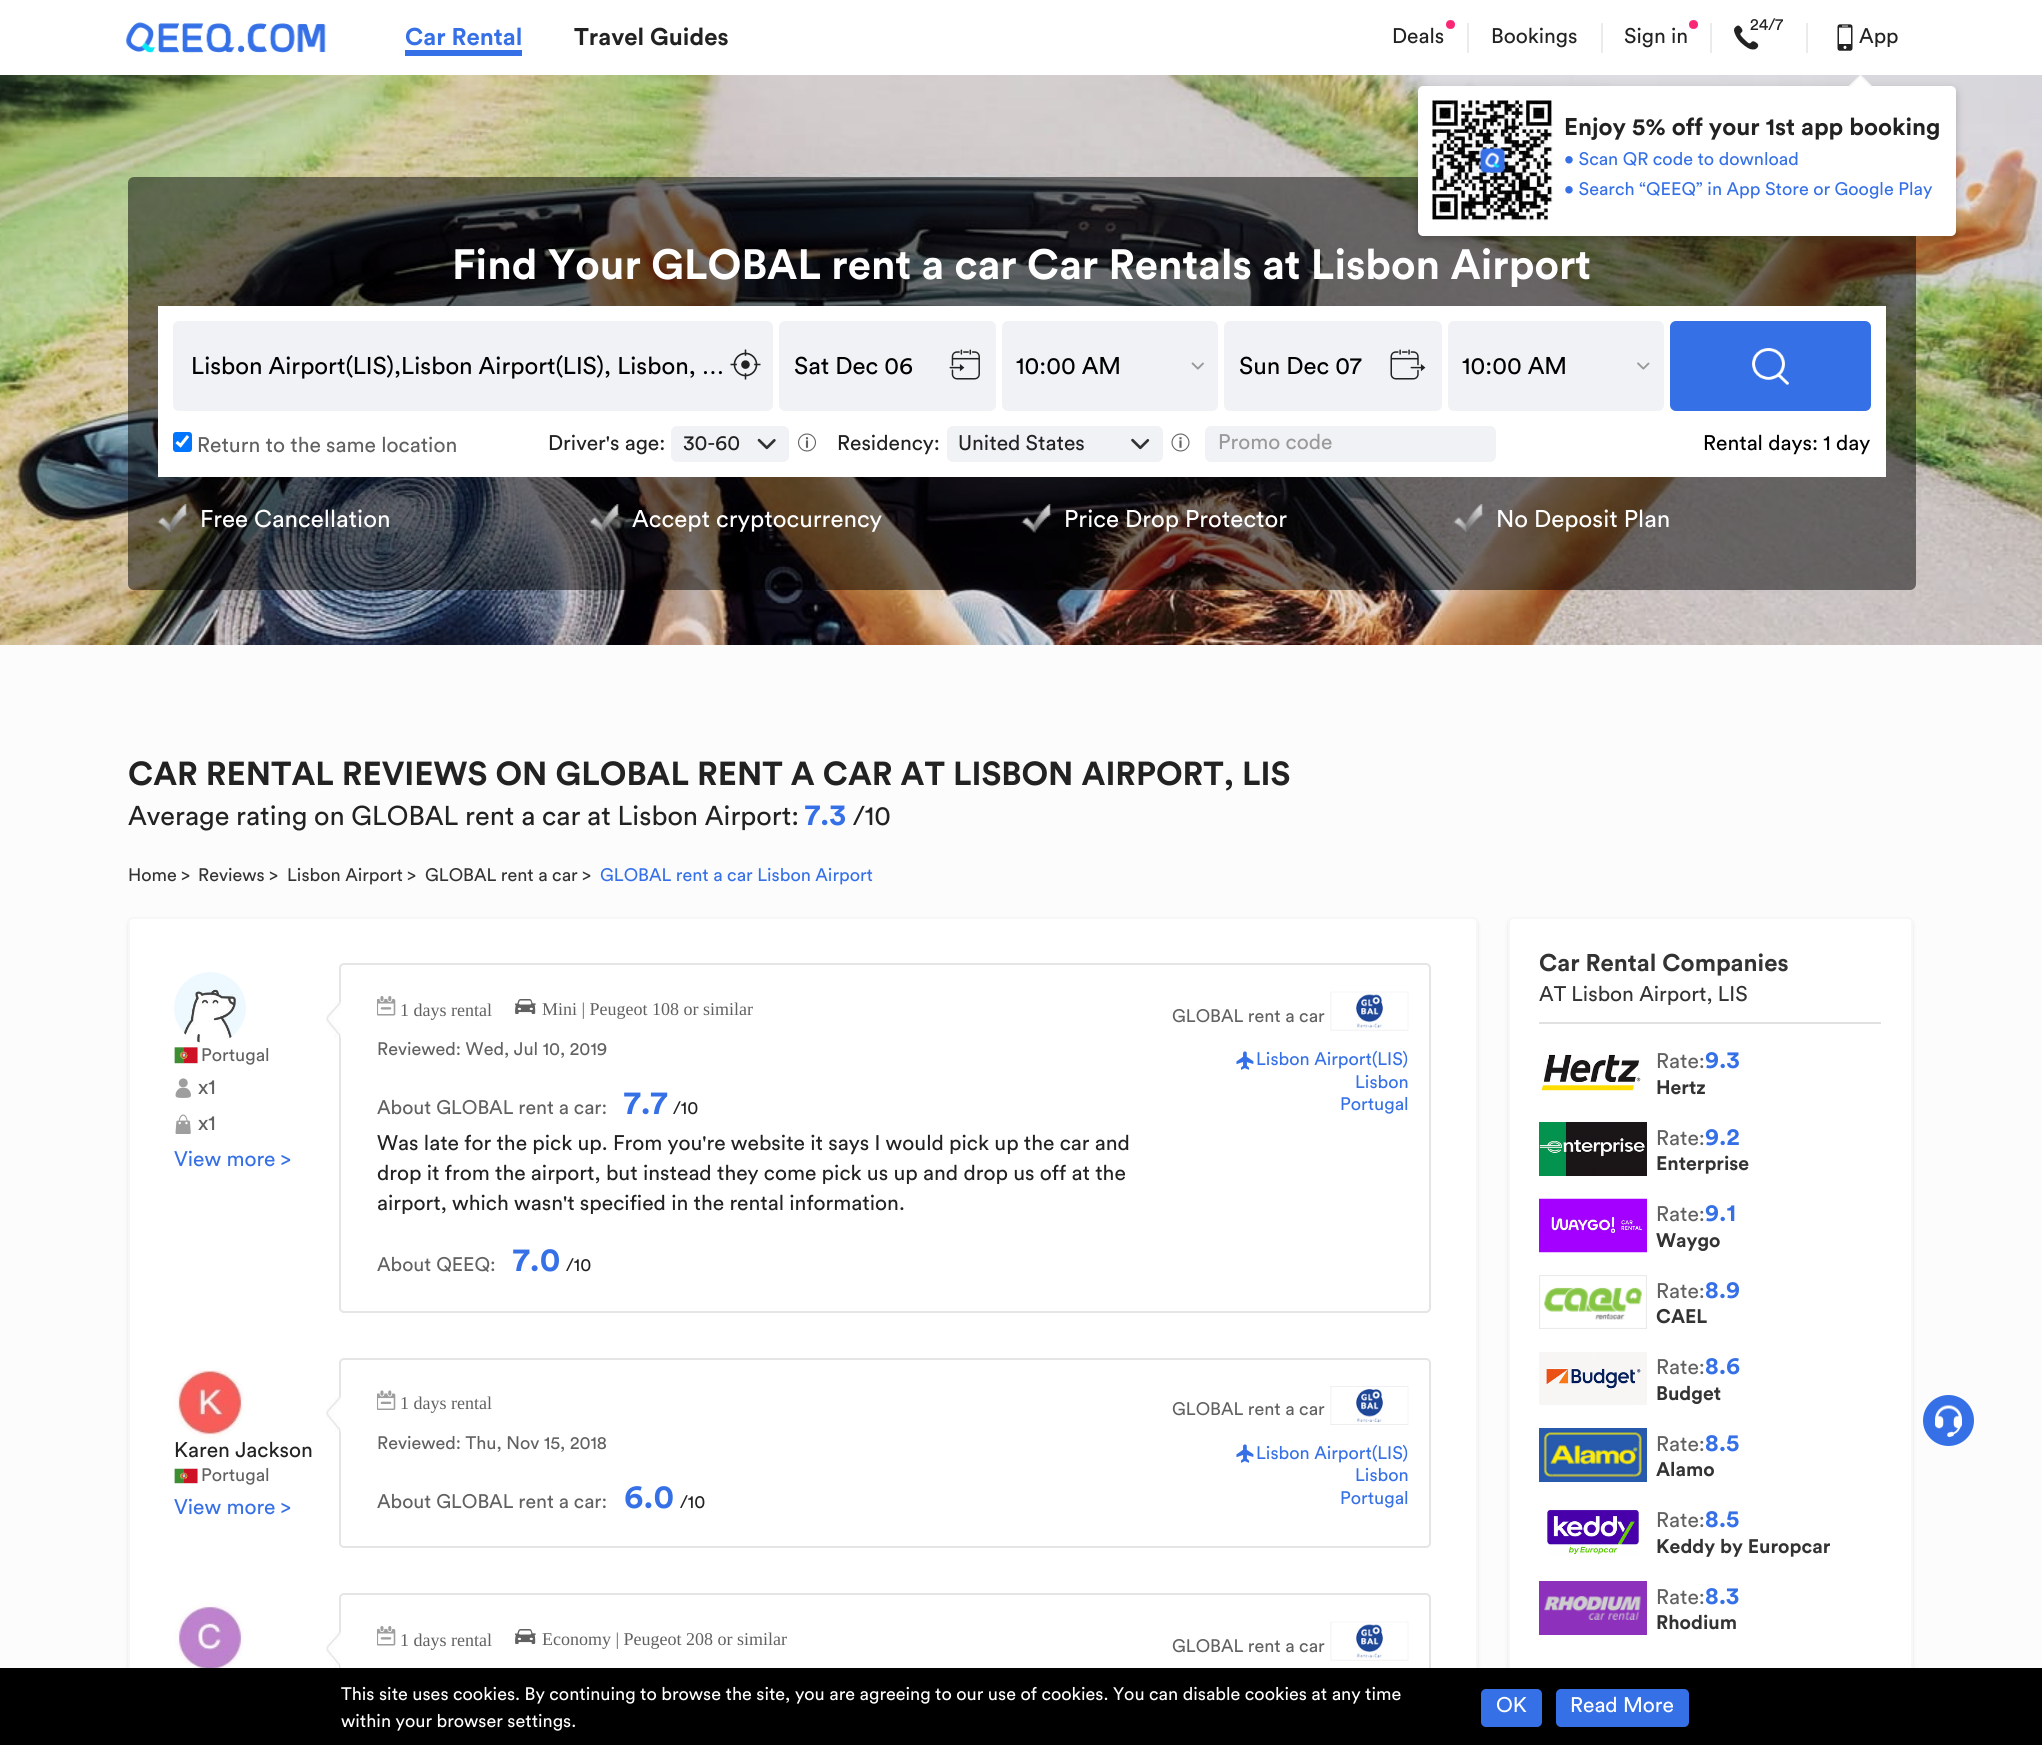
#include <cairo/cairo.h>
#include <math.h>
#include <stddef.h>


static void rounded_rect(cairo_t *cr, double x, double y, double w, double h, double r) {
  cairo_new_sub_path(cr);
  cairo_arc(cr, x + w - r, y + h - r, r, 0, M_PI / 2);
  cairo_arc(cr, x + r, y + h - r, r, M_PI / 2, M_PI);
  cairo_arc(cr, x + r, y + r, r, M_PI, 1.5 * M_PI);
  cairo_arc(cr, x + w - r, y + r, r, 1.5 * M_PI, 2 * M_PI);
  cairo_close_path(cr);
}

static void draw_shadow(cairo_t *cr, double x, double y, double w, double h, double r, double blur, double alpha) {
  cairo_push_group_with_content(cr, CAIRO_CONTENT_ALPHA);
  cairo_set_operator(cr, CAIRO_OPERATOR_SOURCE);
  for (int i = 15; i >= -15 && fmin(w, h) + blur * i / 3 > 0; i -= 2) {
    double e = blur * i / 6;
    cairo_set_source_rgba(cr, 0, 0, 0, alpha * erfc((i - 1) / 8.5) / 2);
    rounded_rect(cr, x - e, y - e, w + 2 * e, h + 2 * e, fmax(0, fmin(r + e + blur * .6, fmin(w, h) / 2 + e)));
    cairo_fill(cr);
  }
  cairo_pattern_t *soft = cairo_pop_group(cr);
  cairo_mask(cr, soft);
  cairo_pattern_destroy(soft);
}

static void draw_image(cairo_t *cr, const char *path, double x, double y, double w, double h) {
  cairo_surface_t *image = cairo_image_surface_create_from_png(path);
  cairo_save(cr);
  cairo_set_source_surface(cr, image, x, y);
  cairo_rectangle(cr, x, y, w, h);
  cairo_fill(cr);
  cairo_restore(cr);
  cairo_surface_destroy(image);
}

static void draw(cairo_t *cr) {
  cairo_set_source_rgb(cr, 1, 1, 1);
  cairo_paint(cr);
  draw_image(cr, "images/1.png", 126, 22, 200, 31);
  cairo_set_source_rgb(cr, 53 / 255.0, 112 / 255.0, 230 / 255.0);
  cairo_rectangle(cr, 405, 50, 117, 6);
  cairo_fill(cr);
  draw_image(cr, "images/2.png", 1734, 25, 25, 25);
  cairo_set_source_rgb(cr, 235 / 255.0, 235 / 255.0, 235 / 255.0);
  cairo_rectangle(cr, 1806, 23, 2, 30);
  cairo_fill(cr);
  cairo_set_source_rgb(cr, 249 / 255.0, 40 / 255.0, 119 / 255.0);
  cairo_arc(cr, 1450.5, 24.5, 4.5, 0, 2 * M_PI);
  cairo_fill(cr);
  cairo_set_source_rgb(cr, 235 / 255.0, 235 / 255.0, 235 / 255.0);
  cairo_rectangle(cr, 1467, 23, 2, 30);
  cairo_fill(cr);
  cairo_rectangle(cr, 1601, 23, 2, 30);
  cairo_fill(cr);
  cairo_set_source_rgb(cr, 249 / 255.0, 40 / 255.0, 119 / 255.0);
  cairo_arc(cr, 1693.5, 24.5, 4.5, 0, 2 * M_PI);
  cairo_fill(cr);
  cairo_set_source_rgb(cr, 235 / 255.0, 235 / 255.0, 235 / 255.0);
  cairo_rectangle(cr, 1710, 23, 2, 30);
  cairo_fill(cr);
  draw_image(cr, "images/3.png", 1837, 24, 16, 27);
  draw_image(cr, "images/6.png", 0, 75, 2042, 570);
  cairo_set_source_rgba(cr, 0, 0, 0, 0.5);
  rounded_rect(cr, 128, 177, 1788, 413, 6);
  cairo_fill(cr);
  cairo_set_source_rgb(cr, 0, 0, 0);
  draw_shadow(cr, 1418, 89, 538, 150, 5, 4.5, 0.22);
  cairo_set_source_rgb(cr, 1, 1, 1);
  rounded_rect(cr, 1418, 86, 538, 150, 5);
  cairo_fill(cr);
  cairo_new_path(cr);
  cairo_move_to(cr, 1860.5, 74.5);
  cairo_line_to(cr, 1872, 86);
  cairo_line_to(cr, 1860.5, 98);
  cairo_line_to(cr, 1848.5, 86);
  cairo_close_path(cr);
  cairo_fill(cr);
  cairo_set_source_rgba(cr, 224 / 255.0, 224 / 255.0, 224 / 255.0, 0.31);
  cairo_new_path(cr);
  cairo_move_to(cr, 1860.5, 74.5);
  cairo_line_to(cr, 1872, 86);
  cairo_line_to(cr, 1871, 87.5);
  cairo_line_to(cr, 1860.5, 76.5);
  cairo_close_path(cr);
  cairo_fill(cr);
  cairo_new_path(cr);
  cairo_move_to(cr, 1848.5, 86);
  cairo_line_to(cr, 1860.5, 74.5);
  cairo_line_to(cr, 1860.5, 76.5);
  cairo_line_to(cr, 1849.5, 87.5);
  cairo_close_path(cr);
  cairo_fill(cr);
  draw_image(cr, "images/4.png", 1432, 100, 121, 121);
  draw_image(cr, "images/5.png", 1480, 148, 25, 25);
  cairo_set_source_rgb(cr, 252 / 255.0, 252 / 255.0, 252 / 255.0);
  cairo_rectangle(cr, 0, 645, 2042, 1023);
  cairo_fill(cr);
  cairo_set_source_rgb(cr, 1, 1, 1);
  cairo_rectangle(cr, 158, 306, 1728, 171);
  cairo_fill(cr);
  cairo_set_source_rgb(cr, 240 / 255.0, 242 / 255.0, 245 / 255.0);
  rounded_rect(cr, 173, 321, 600, 90, 6);
  cairo_fill(cr);
  draw_image(cr, "images/7.png", 730, 349, 31, 31);
  rounded_rect(cr, 779, 321, 217, 90, 6);
  cairo_fill(cr);
  draw_image(cr, "images/8.png", 949, 349, 31, 31);
  rounded_rect(cr, 1002, 321, 216, 90, 6);
  cairo_fill(cr);
  draw_image(cr, "images/9.png", 1191, 362, 13, 8);
  rounded_rect(cr, 1224, 321, 218, 90, 6);
  cairo_fill(cr);
  draw_image(cr, "images/10.png", 1390, 349, 36, 31);
  rounded_rect(cr, 1448, 321, 216, 90, 6);
  cairo_fill(cr);
  draw_image(cr, "images/11.png", 1637, 362, 13, 8);
  cairo_set_source_rgb(cr, 53 / 255.0, 112 / 255.0, 230 / 255.0);
  rounded_rect(cr, 1670, 321, 201, 90, 6);
  cairo_fill(cr);
  draw_image(cr, "images/12.png", 1752, 348, 37, 37);
  cairo_set_source_rgb(cr, 0, 117 / 255.0, 1);
  rounded_rect(cr, 173, 432, 19, 20, 3);
  cairo_fill(cr);
  cairo_new_path(cr);
  cairo_move_to(cr, 176.5, 442);
  cairo_line_to(cr, 180.5, 445.5);
  cairo_line_to(cr, 188, 436);
  cairo_set_source_rgb(cr, 1, 1, 1);
  cairo_set_line_width(cr, 3.1);
  cairo_stroke(cr);
  cairo_set_source_rgb(cr, 240 / 255.0, 242 / 255.0, 245 / 255.0);
  rounded_rect(cr, 671, 426, 118, 36, 6);
  cairo_fill(cr);
  draw_image(cr, "images/13.png", 757, 438, 19, 12);
  draw_image(cr, "images/14.png", 798, 433, 18, 19);
  rounded_rect(cr, 947, 426, 216, 36, 6);
  cairo_fill(cr);
  draw_image(cr, "images/15.png", 1131, 438, 19, 12);
  draw_image(cr, "images/16.png", 1171, 433, 19, 19);
  rounded_rect(cr, 1206, 427, 289, 34, 5);
  cairo_fill_preserve(cr);
  cairo_set_line_width(cr, 2);
  cairo_stroke(cr);
  draw_image(cr, "images/17.png", 157, 504, 31, 29);
  draw_image(cr, "images/18.png", 589, 504, 31, 29);
  draw_image(cr, "images/19.png", 1021, 504, 31, 29);
  draw_image(cr, "images/20.png", 1453, 504, 31, 29);
  cairo_set_source_rgb(cr, 0, 0, 0);
  draw_shadow(cr, 128, 920, 1350, 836, 5, 2, 0.09);
  cairo_set_source_rgb(cr, 1, 1, 1);
  rounded_rect(cr, 129, 918, 1348, 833, 4);
  cairo_fill_preserve(cr);
  cairo_set_source_rgb(cr, 247 / 255.0, 247 / 255.0, 247 / 255.0);
  cairo_stroke(cr);
  draw_image(cr, "images/21.png", 174, 972, 72, 71);
  draw_image(cr, "images/22.png", 174, 1047, 24, 17);
  draw_image(cr, "images/23.png", 175, 1078, 16, 20);
  draw_image(cr, "images/24.png", 175, 1114, 16, 20);
  rounded_rect(cr, 340, 964, 1090, 348, 4);
  cairo_set_source_rgb(cr, 229 / 255.0, 229 / 255.0, 229 / 255.0);
  cairo_stroke(cr);
  draw_image(cr, "images/25.png", 326, 1002, 15, 36);
  draw_image(cr, "images/26.png", 377, 996, 19, 20);
  draw_image(cr, "images/27.png", 515, 999, 21, 15);
  draw_image(cr, "images/28.png", 1330, 991, 79, 40);
  draw_image(cr, "images/29.png", 1236, 1051, 18, 19);
  draw_image(cr, "images/30.png", 174, 1368, 72, 70);
  draw_image(cr, "images/31.png", 174, 1468, 24, 16);
  rounded_rect(cr, 340, 1359, 1090, 188, 4);
  cairo_stroke(cr);
  draw_image(cr, "images/32.png", 326, 1396, 15, 37);
  draw_image(cr, "images/33.png", 377, 1390, 19, 20);
  draw_image(cr, "images/34.png", 1330, 1386, 79, 39);
  draw_image(cr, "images/29.png", 1236, 1444, 18, 19);
  draw_image(cr, "images/35.png", 174, 1602, 69, 66);
  rounded_rect(cr, 340, 1594, 1090, 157, 4);
  cairo_stroke(cr);
  draw_image(cr, "images/25.png", 326, 1632, 15, 36);
  draw_image(cr, "images/26.png", 377, 1626, 19, 20);
  draw_image(cr, "images/27.png", 515, 1629, 21, 15);
  draw_image(cr, "images/28.png", 1330, 1621, 79, 40);
  cairo_set_source_rgb(cr, 0, 0, 0);
  draw_shadow(cr, 1508, 920, 405, 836, 5, 2, 0.09);
  cairo_set_source_rgb(cr, 1, 1, 1);
  rounded_rect(cr, 1509, 918, 403, 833, 4);
  cairo_fill_preserve(cr);
  cairo_set_source_rgb(cr, 247 / 255.0, 247 / 255.0, 247 / 255.0);
  cairo_stroke(cr);
  cairo_set_source_rgb(cr, 225 / 255.0, 225 / 255.0, 225 / 255.0);
  cairo_rectangle(cr, 1539, 1022, 342, 2);
  cairo_fill(cr);
  draw_image(cr, "images/36.png", 1541, 1054, 100, 37);
  draw_image(cr, "images/37.png", 1539, 1122, 108, 54);
  draw_image(cr, "images/38.png", 1539, 1198, 108, 55);
  draw_image(cr, "images/39.png", 1539, 1275, 108, 54);
  draw_image(cr, "images/40.png", 1539, 1352, 108, 53);
  draw_image(cr, "images/41.png", 1539, 1428, 108, 54);
  draw_image(cr, "images/42.png", 1547, 1510, 92, 45);
  draw_image(cr, "images/43.png", 1539, 1581, 108, 54);
  cairo_set_source_rgb(cr, 53 / 255.0, 112 / 255.0, 230 / 255.0);
  cairo_arc(cr, 1948.5, 1420.5, 25.5, 0, 2 * M_PI);
  cairo_fill(cr);
  draw_image(cr, "images/44.png", 1935, 1405, 27, 32);
  cairo_set_source_rgb(cr, 0, 0, 0);
  cairo_rectangle(cr, 0, 1668, 2042, 77);
  cairo_fill(cr);
  cairo_set_source_rgb(cr, 53 / 255.0, 112 / 255.0, 230 / 255.0);
  rounded_rect(cr, 1481, 1689, 61, 38, 5);
  cairo_fill(cr);
  rounded_rect(cr, 1556, 1689, 133, 38, 5);
  cairo_fill(cr);
  cairo_select_font_face(cr, "Circular", CAIRO_FONT_SLANT_NORMAL, CAIRO_FONT_WEIGHT_BOLD);
  cairo_set_font_size(cr, 24);
  cairo_move_to(cr, 405, 45);
  cairo_show_text(cr, "Car Rental");
  cairo_set_source_rgb(cr, 34 / 255.0, 34 / 255.0, 34 / 255.0);
  cairo_move_to(cr, 574, 45);
  cairo_show_text(cr, "Travel Guides");
  cairo_select_font_face(cr, "Circular", CAIRO_FONT_SLANT_NORMAL, CAIRO_FONT_WEIGHT_NORMAL);
  cairo_set_font_size(cr, 16.5);
  cairo_move_to(cr, 1750, 30);
  cairo_show_text(cr, "24/7");
  cairo_set_font_size(cr, 21);
  cairo_move_to(cr, 1392, 43);
  cairo_show_text(cr, "Deals");
  cairo_move_to(cr, 1491, 43);
  cairo_show_text(cr, "Bookings");
  cairo_move_to(cr, 1624, 43);
  cairo_show_text(cr, "Sign in");
  cairo_move_to(cr, 1859, 43);
  cairo_show_text(cr, "App");
  cairo_select_font_face(cr, "Circular", CAIRO_FONT_SLANT_NORMAL, CAIRO_FONT_WEIGHT_BOLD);
  cairo_set_font_size(cr, 24);
  cairo_move_to(cr, 1564, 135);
  cairo_show_text(cr, "Enjoy 5% off your 1st app booking");
  cairo_select_font_face(cr, "Circular", CAIRO_FONT_SLANT_NORMAL, CAIRO_FONT_WEIGHT_NORMAL);
  cairo_set_font_size(cr, 18);
  cairo_set_source_rgb(cr, 53 / 255.0, 112 / 255.0, 230 / 255.0);
  cairo_move_to(cr, 1564, 165);
  cairo_show_text(cr, "• Scan QR code to download");
  cairo_move_to(cr, 1564, 195);
  cairo_show_text(cr, "• Search “QEEQ” in App Store or Google Play");
  cairo_select_font_face(cr, "Circular", CAIRO_FONT_SLANT_NORMAL, CAIRO_FONT_WEIGHT_BOLD);
  cairo_set_font_size(cr, 42);
  cairo_set_source_rgb(cr, 1, 1, 1);
  cairo_move_to(cr, 452, 279);
  cairo_show_text(cr, "Find Your GLOBAL rent a car Car Rentals at Lisbon Airport");
  cairo_select_font_face(cr, "Circular", CAIRO_FONT_SLANT_NORMAL, CAIRO_FONT_WEIGHT_NORMAL);
  cairo_set_font_size(cr, 24);
  cairo_set_source_rgb(cr, 0, 0, 0);
  cairo_move_to(cr, 191, 374);
  cairo_show_text(cr, "Lisbon Airport(LIS),Lisbon Airport(LIS), Lisbon, …");
  cairo_move_to(cr, 794, 374);
  cairo_show_text(cr, "Sat Dec 06");
  cairo_move_to(cr, 1016, 374);
  cairo_show_text(cr, "10:00 AM");
  cairo_move_to(cr, 1239, 374);
  cairo_show_text(cr, "Sun Dec 07");
  cairo_move_to(cr, 1462, 374);
  cairo_show_text(cr, "10:00 AM");
  cairo_set_font_size(cr, 21);
  cairo_set_source_rgb(cr, 97 / 255.0, 97 / 255.0, 97 / 255.0);
  cairo_move_to(cr, 197, 452);
  cairo_show_text(cr, "Return to the same location");
  cairo_set_source_rgb(cr, 34 / 255.0, 34 / 255.0, 34 / 255.0);
  cairo_move_to(cr, 548, 450);
  cairo_show_text(cr, "Driver's age:");
  cairo_move_to(cr, 683, 450);
  cairo_show_text(cr, "30-60");
  cairo_move_to(cr, 837, 450);
  cairo_show_text(cr, "Residency:");
  cairo_move_to(cr, 958, 450);
  cairo_show_text(cr, "United States");
  cairo_set_source_rgb(cr, 153 / 255.0, 153 / 255.0, 153 / 255.0);
  cairo_move_to(cr, 1218, 449);
  cairo_show_text(cr, "Promo code");
  cairo_set_source_rgb(cr, 0, 0, 0);
  cairo_move_to(cr, 1703, 450);
  cairo_show_text(cr, "Rental days: 1 day");
  cairo_set_font_size(cr, 24);
  cairo_set_source_rgb(cr, 1, 1, 1);
  cairo_move_to(cr, 200, 527);
  cairo_show_text(cr, "Free Cancellation");
  cairo_move_to(cr, 632, 527);
  cairo_show_text(cr, "Accept cryptocurrency");
  cairo_move_to(cr, 1064, 527);
  cairo_show_text(cr, "Price Drop Protector");
  cairo_move_to(cr, 1496, 527);
  cairo_show_text(cr, "No Deposit Plan");
  cairo_select_font_face(cr, "Circular", CAIRO_FONT_SLANT_NORMAL, CAIRO_FONT_WEIGHT_BOLD);
  cairo_set_font_size(cr, 33);
  cairo_set_source_rgb(cr, 34 / 255.0, 34 / 255.0, 34 / 255.0);
  cairo_move_to(cr, 128, 785);
  cairo_show_text(cr, "CAR RENTAL REVIEWS ON GLOBAL RENT A CAR AT LISBON AIRPORT, LIS");
  cairo_select_font_face(cr, "Circular", CAIRO_FONT_SLANT_NORMAL, CAIRO_FONT_WEIGHT_NORMAL);
  cairo_set_font_size(cr, 27);
  cairo_move_to(cr, 128, 825);
  cairo_show_text(cr, "Average rating on GLOBAL rent a car at Lisbon Airport:");
  cairo_select_font_face(cr, "Circular", CAIRO_FONT_SLANT_NORMAL, CAIRO_FONT_WEIGHT_BOLD);
  cairo_set_font_size(cr, 30);
  cairo_set_source_rgb(cr, 53 / 255.0, 112 / 255.0, 230 / 255.0);
  cairo_move_to(cr, 805, 825);
  cairo_show_text(cr, "7.3");
  cairo_select_font_face(cr, "Circular", CAIRO_FONT_SLANT_NORMAL, CAIRO_FONT_WEIGHT_NORMAL);
  cairo_set_font_size(cr, 27);
  cairo_set_source_rgb(cr, 34 / 255.0, 34 / 255.0, 34 / 255.0);
  cairo_move_to(cr, 853, 825);
  cairo_show_text(cr, "/10");
  cairo_set_font_size(cr, 18);
  cairo_set_source_rgb(cr, 51 / 255.0, 51 / 255.0, 51 / 255.0);
  cairo_move_to(cr, 128, 881);
  cairo_show_text(cr, "Home >");
  cairo_move_to(cr, 198, 881);
  cairo_show_text(cr, "Reviews >");
  cairo_move_to(cr, 287, 881);
  cairo_show_text(cr, "Lisbon Airport >");
  cairo_move_to(cr, 425, 881);
  cairo_show_text(cr, "GLOBAL rent a car >");
  cairo_set_source_rgb(cr, 53 / 255.0, 112 / 255.0, 230 / 255.0);
  cairo_move_to(cr, 600, 881);
  cairo_show_text(cr, "GLOBAL rent a car Lisbon Airport");
  cairo_set_source_rgb(cr, 97 / 255.0, 97 / 255.0, 97 / 255.0);
  cairo_move_to(cr, 201, 1061);
  cairo_show_text(cr, "Portugal");
  cairo_set_font_size(cr, 21);
  cairo_move_to(cr, 198, 1094);
  cairo_show_text(cr, "x1");
  cairo_move_to(cr, 198, 1130);
  cairo_show_text(cr, "x1");
  cairo_set_source_rgb(cr, 53 / 255.0, 112 / 255.0, 230 / 255.0);
  cairo_move_to(cr, 174, 1166);
  cairo_show_text(cr, "View more >");
  cairo_select_font_face(cr, "Liberation Serif", CAIRO_FONT_SLANT_NORMAL, CAIRO_FONT_WEIGHT_NORMAL);
  cairo_set_font_size(cr, 18);
  cairo_set_source_rgb(cr, 97 / 255.0, 97 / 255.0, 97 / 255.0);
  cairo_move_to(cr, 400, 1016);
  cairo_show_text(cr, "1 days rental");
  cairo_move_to(cr, 542, 1015);
  cairo_show_text(cr, "Mini | Peugeot 108 or similar");
  cairo_select_font_face(cr, "Circular", CAIRO_FONT_SLANT_NORMAL, CAIRO_FONT_WEIGHT_NORMAL);
  cairo_move_to(cr, 1172, 1022);
  cairo_show_text(cr, "GLOBAL rent a car");
  cairo_set_source_rgb(cr, 53 / 255.0, 112 / 255.0, 230 / 255.0);
  cairo_move_to(cr, 1256, 1065);
  cairo_show_text(cr, "Lisbon Airport(LIS)");
  cairo_move_to(cr, 1355, 1088);
  cairo_show_text(cr, "Lisbon");
  cairo_move_to(cr, 1340, 1110);
  cairo_show_text(cr, "Portugal");
  cairo_set_source_rgb(cr, 97 / 255.0, 97 / 255.0, 97 / 255.0);
  cairo_move_to(cr, 377, 1055);
  cairo_show_text(cr, "Reviewed: Wed, Jul 10, 2019");
  cairo_set_font_size(cr, 19.5);
  cairo_move_to(cr, 377, 1114);
  cairo_show_text(cr, "About GLOBAL rent a car:");
  cairo_select_font_face(cr, "Circular", CAIRO_FONT_SLANT_NORMAL, CAIRO_FONT_WEIGHT_BOLD);
  cairo_set_font_size(cr, 33);
  cairo_set_source_rgb(cr, 53 / 255.0, 112 / 255.0, 230 / 255.0);
  cairo_move_to(cr, 624, 1114);
  cairo_show_text(cr, "7.7");
  cairo_select_font_face(cr, "Circular", CAIRO_FONT_SLANT_NORMAL, CAIRO_FONT_WEIGHT_NORMAL);
  cairo_set_font_size(cr, 18);
  cairo_set_source_rgb(cr, 34 / 255.0, 34 / 255.0, 34 / 255.0);
  cairo_move_to(cr, 673, 1114);
  cairo_show_text(cr, "/10");
  cairo_set_font_size(cr, 21);
  cairo_move_to(cr, 377, 1150);
  cairo_show_text(cr, "Was late for the pick up. From you're website it says I would pick up the car and");
  cairo_move_to(cr, 377, 1180);
  cairo_show_text(cr, "drop it from the airport, but instead they come pick us up and drop us off at the");
  cairo_move_to(cr, 377, 1210);
  cairo_show_text(cr, "airport, which wasn't specified in the rental information.");
  cairo_set_font_size(cr, 19.5);
  cairo_set_source_rgb(cr, 97 / 255.0, 97 / 255.0, 97 / 255.0);
  cairo_move_to(cr, 377, 1271);
  cairo_show_text(cr, "About QEEQ:");
  cairo_select_font_face(cr, "Circular", CAIRO_FONT_SLANT_NORMAL, CAIRO_FONT_WEIGHT_BOLD);
  cairo_set_font_size(cr, 33);
  cairo_set_source_rgb(cr, 53 / 255.0, 112 / 255.0, 230 / 255.0);
  cairo_move_to(cr, 513, 1271);
  cairo_show_text(cr, "7.0");
  cairo_select_font_face(cr, "Circular", CAIRO_FONT_SLANT_NORMAL, CAIRO_FONT_WEIGHT_NORMAL);
  cairo_set_font_size(cr, 18);
  cairo_set_source_rgb(cr, 34 / 255.0, 34 / 255.0, 34 / 255.0);
  cairo_move_to(cr, 566, 1271);
  cairo_show_text(cr, "/10");
  cairo_set_font_size(cr, 21);
  cairo_move_to(cr, 174, 1457);
  cairo_show_text(cr, "Karen Jackson");
  cairo_set_font_size(cr, 18);
  cairo_set_source_rgb(cr, 97 / 255.0, 97 / 255.0, 97 / 255.0);
  cairo_move_to(cr, 201, 1481);
  cairo_show_text(cr, "Portugal");
  cairo_set_font_size(cr, 21);
  cairo_set_source_rgb(cr, 53 / 255.0, 112 / 255.0, 230 / 255.0);
  cairo_move_to(cr, 174, 1514);
  cairo_show_text(cr, "View more >");
  cairo_select_font_face(cr, "Liberation Serif", CAIRO_FONT_SLANT_NORMAL, CAIRO_FONT_WEIGHT_NORMAL);
  cairo_set_font_size(cr, 18);
  cairo_set_source_rgb(cr, 97 / 255.0, 97 / 255.0, 97 / 255.0);
  cairo_move_to(cr, 400, 1409);
  cairo_show_text(cr, "1 days rental");
  cairo_select_font_face(cr, "Circular", CAIRO_FONT_SLANT_NORMAL, CAIRO_FONT_WEIGHT_NORMAL);
  cairo_move_to(cr, 1172, 1415);
  cairo_show_text(cr, "GLOBAL rent a car");
  cairo_set_source_rgb(cr, 53 / 255.0, 112 / 255.0, 230 / 255.0);
  cairo_move_to(cr, 1256, 1459);
  cairo_show_text(cr, "Lisbon Airport(LIS)");
  cairo_move_to(cr, 1355, 1481);
  cairo_show_text(cr, "Lisbon");
  cairo_move_to(cr, 1340, 1504);
  cairo_show_text(cr, "Portugal");
  cairo_set_source_rgb(cr, 97 / 255.0, 97 / 255.0, 97 / 255.0);
  cairo_move_to(cr, 377, 1449);
  cairo_show_text(cr, "Reviewed: Thu, Nov 15, 2018");
  cairo_set_font_size(cr, 19.5);
  cairo_move_to(cr, 377, 1508);
  cairo_show_text(cr, "About GLOBAL rent a car:");
  cairo_select_font_face(cr, "Circular", CAIRO_FONT_SLANT_NORMAL, CAIRO_FONT_WEIGHT_BOLD);
  cairo_set_font_size(cr, 33);
  cairo_set_source_rgb(cr, 53 / 255.0, 112 / 255.0, 230 / 255.0);
  cairo_move_to(cr, 624, 1508);
  cairo_show_text(cr, "6.0");
  cairo_select_font_face(cr, "Circular", CAIRO_FONT_SLANT_NORMAL, CAIRO_FONT_WEIGHT_NORMAL);
  cairo_set_font_size(cr, 18);
  cairo_set_source_rgb(cr, 34 / 255.0, 34 / 255.0, 34 / 255.0);
  cairo_move_to(cr, 680, 1508);
  cairo_show_text(cr, "/10");
  cairo_select_font_face(cr, "Liberation Serif", CAIRO_FONT_SLANT_NORMAL, CAIRO_FONT_WEIGHT_NORMAL);
  cairo_set_source_rgb(cr, 97 / 255.0, 97 / 255.0, 97 / 255.0);
  cairo_move_to(cr, 400, 1646);
  cairo_show_text(cr, "1 days rental");
  cairo_move_to(cr, 542, 1645);
  cairo_show_text(cr, "Economy | Peugeot 208 or similar");
  cairo_select_font_face(cr, "Circular", CAIRO_FONT_SLANT_NORMAL, CAIRO_FONT_WEIGHT_NORMAL);
  cairo_move_to(cr, 1172, 1652);
  cairo_show_text(cr, "GLOBAL rent a car");
  cairo_select_font_face(cr, "Circular", CAIRO_FONT_SLANT_NORMAL, CAIRO_FONT_WEIGHT_BOLD);
  cairo_set_font_size(cr, 24);
  cairo_set_source_rgb(cr, 51 / 255.0, 51 / 255.0, 51 / 255.0);
  cairo_move_to(cr, 1539, 971);
  cairo_show_text(cr, "Car Rental Companies");
  cairo_select_font_face(cr, "Circular", CAIRO_FONT_SLANT_NORMAL, CAIRO_FONT_WEIGHT_NORMAL);
  cairo_set_font_size(cr, 21);
  cairo_move_to(cr, 1539, 1001);
  cairo_show_text(cr, "AT Lisbon Airport, LIS");
  cairo_set_source_rgb(cr, 97 / 255.0, 97 / 255.0, 97 / 255.0);
  cairo_move_to(cr, 1656, 1068);
  cairo_show_text(cr, "Rate:");
  cairo_select_font_face(cr, "Circular", CAIRO_FONT_SLANT_NORMAL, CAIRO_FONT_WEIGHT_BOLD);
  cairo_set_font_size(cr, 24);
  cairo_set_source_rgb(cr, 53 / 255.0, 112 / 255.0, 230 / 255.0);
  cairo_move_to(cr, 1705, 1068);
  cairo_show_text(cr, "9.3");
  cairo_set_font_size(cr, 19.5);
  cairo_set_source_rgb(cr, 51 / 255.0, 51 / 255.0, 51 / 255.0);
  cairo_move_to(cr, 1656, 1094);
  cairo_show_text(cr, "Hertz");
  cairo_select_font_face(cr, "Circular", CAIRO_FONT_SLANT_NORMAL, CAIRO_FONT_WEIGHT_NORMAL);
  cairo_set_font_size(cr, 21);
  cairo_set_source_rgb(cr, 97 / 255.0, 97 / 255.0, 97 / 255.0);
  cairo_move_to(cr, 1656, 1145);
  cairo_show_text(cr, "Rate:");
  cairo_select_font_face(cr, "Circular", CAIRO_FONT_SLANT_NORMAL, CAIRO_FONT_WEIGHT_BOLD);
  cairo_set_font_size(cr, 24);
  cairo_set_source_rgb(cr, 53 / 255.0, 112 / 255.0, 230 / 255.0);
  cairo_move_to(cr, 1705, 1145);
  cairo_show_text(cr, "9.2");
  cairo_set_font_size(cr, 19.5);
  cairo_set_source_rgb(cr, 51 / 255.0, 51 / 255.0, 51 / 255.0);
  cairo_move_to(cr, 1656, 1170);
  cairo_show_text(cr, "Enterprise");
  cairo_select_font_face(cr, "Circular", CAIRO_FONT_SLANT_NORMAL, CAIRO_FONT_WEIGHT_NORMAL);
  cairo_set_font_size(cr, 21);
  cairo_set_source_rgb(cr, 97 / 255.0, 97 / 255.0, 97 / 255.0);
  cairo_move_to(cr, 1656, 1221);
  cairo_show_text(cr, "Rate:");
  cairo_select_font_face(cr, "Circular", CAIRO_FONT_SLANT_NORMAL, CAIRO_FONT_WEIGHT_BOLD);
  cairo_set_font_size(cr, 24);
  cairo_set_source_rgb(cr, 53 / 255.0, 112 / 255.0, 230 / 255.0);
  cairo_move_to(cr, 1705, 1221);
  cairo_show_text(cr, "9.1");
  cairo_set_font_size(cr, 19.5);
  cairo_set_source_rgb(cr, 51 / 255.0, 51 / 255.0, 51 / 255.0);
  cairo_move_to(cr, 1656, 1247);
  cairo_show_text(cr, "Waygo");
  cairo_select_font_face(cr, "Circular", CAIRO_FONT_SLANT_NORMAL, CAIRO_FONT_WEIGHT_NORMAL);
  cairo_set_font_size(cr, 21);
  cairo_set_source_rgb(cr, 97 / 255.0, 97 / 255.0, 97 / 255.0);
  cairo_move_to(cr, 1656, 1298);
  cairo_show_text(cr, "Rate:");
  cairo_select_font_face(cr, "Circular", CAIRO_FONT_SLANT_NORMAL, CAIRO_FONT_WEIGHT_BOLD);
  cairo_set_font_size(cr, 24);
  cairo_set_source_rgb(cr, 53 / 255.0, 112 / 255.0, 230 / 255.0);
  cairo_move_to(cr, 1705, 1298);
  cairo_show_text(cr, "8.9");
  cairo_set_font_size(cr, 19.5);
  cairo_set_source_rgb(cr, 51 / 255.0, 51 / 255.0, 51 / 255.0);
  cairo_move_to(cr, 1656, 1323);
  cairo_show_text(cr, "CAEL");
  cairo_select_font_face(cr, "Circular", CAIRO_FONT_SLANT_NORMAL, CAIRO_FONT_WEIGHT_NORMAL);
  cairo_set_font_size(cr, 21);
  cairo_set_source_rgb(cr, 97 / 255.0, 97 / 255.0, 97 / 255.0);
  cairo_move_to(cr, 1656, 1374);
  cairo_show_text(cr, "Rate:");
  cairo_select_font_face(cr, "Circular", CAIRO_FONT_SLANT_NORMAL, CAIRO_FONT_WEIGHT_BOLD);
  cairo_set_font_size(cr, 24);
  cairo_set_source_rgb(cr, 53 / 255.0, 112 / 255.0, 230 / 255.0);
  cairo_move_to(cr, 1705, 1374);
  cairo_show_text(cr, "8.6");
  cairo_set_font_size(cr, 19.5);
  cairo_set_source_rgb(cr, 51 / 255.0, 51 / 255.0, 51 / 255.0);
  cairo_move_to(cr, 1656, 1400);
  cairo_show_text(cr, "Budget");
  cairo_select_font_face(cr, "Circular", CAIRO_FONT_SLANT_NORMAL, CAIRO_FONT_WEIGHT_NORMAL);
  cairo_set_font_size(cr, 21);
  cairo_set_source_rgb(cr, 97 / 255.0, 97 / 255.0, 97 / 255.0);
  cairo_move_to(cr, 1656, 1451);
  cairo_show_text(cr, "Rate:");
  cairo_select_font_face(cr, "Circular", CAIRO_FONT_SLANT_NORMAL, CAIRO_FONT_WEIGHT_BOLD);
  cairo_set_font_size(cr, 24);
  cairo_set_source_rgb(cr, 53 / 255.0, 112 / 255.0, 230 / 255.0);
  cairo_move_to(cr, 1705, 1451);
  cairo_show_text(cr, "8.5");
  cairo_set_font_size(cr, 19.5);
  cairo_set_source_rgb(cr, 51 / 255.0, 51 / 255.0, 51 / 255.0);
  cairo_move_to(cr, 1656, 1476);
  cairo_show_text(cr, "Alamo");
  cairo_select_font_face(cr, "Circular", CAIRO_FONT_SLANT_NORMAL, CAIRO_FONT_WEIGHT_NORMAL);
  cairo_set_font_size(cr, 21);
  cairo_set_source_rgb(cr, 97 / 255.0, 97 / 255.0, 97 / 255.0);
  cairo_move_to(cr, 1656, 1527);
  cairo_show_text(cr, "Rate:");
  cairo_select_font_face(cr, "Circular", CAIRO_FONT_SLANT_NORMAL, CAIRO_FONT_WEIGHT_BOLD);
  cairo_set_font_size(cr, 24);
  cairo_set_source_rgb(cr, 53 / 255.0, 112 / 255.0, 230 / 255.0);
  cairo_move_to(cr, 1705, 1527);
  cairo_show_text(cr, "8.5");
  cairo_set_font_size(cr, 19.5);
  cairo_set_source_rgb(cr, 51 / 255.0, 51 / 255.0, 51 / 255.0);
  cairo_move_to(cr, 1656, 1553);
  cairo_show_text(cr, "Keddy by Europcar");
  cairo_select_font_face(cr, "Circular", CAIRO_FONT_SLANT_NORMAL, CAIRO_FONT_WEIGHT_NORMAL);
  cairo_set_font_size(cr, 21);
  cairo_set_source_rgb(cr, 97 / 255.0, 97 / 255.0, 97 / 255.0);
  cairo_move_to(cr, 1656, 1604);
  cairo_show_text(cr, "Rate:");
  cairo_select_font_face(cr, "Circular", CAIRO_FONT_SLANT_NORMAL, CAIRO_FONT_WEIGHT_BOLD);
  cairo_set_font_size(cr, 24);
  cairo_set_source_rgb(cr, 53 / 255.0, 112 / 255.0, 230 / 255.0);
  cairo_move_to(cr, 1705, 1604);
  cairo_show_text(cr, "8.3");
  cairo_set_font_size(cr, 19.5);
  cairo_set_source_rgb(cr, 51 / 255.0, 51 / 255.0, 51 / 255.0);
  cairo_move_to(cr, 1656, 1629);
  cairo_show_text(cr, "Rhodium");
  cairo_select_font_face(cr, "Circular", CAIRO_FONT_SLANT_NORMAL, CAIRO_FONT_WEIGHT_NORMAL);
  cairo_set_font_size(cr, 18);
  cairo_set_source_rgb(cr, 1, 1, 1);
  cairo_move_to(cr, 341, 1700);
  cairo_show_text(cr, "This site uses cookies. By continuing to browse the site, you are agreeing to our use of cookies. You can disable cookies at any time");
  cairo_move_to(cr, 341, 1727);
  cairo_show_text(cr, "within your browser settings.");
  cairo_set_font_size(cr, 21);
  cairo_move_to(cr, 1496, 1712);
  cairo_show_text(cr, "OK");
  cairo_move_to(cr, 1570, 1712);
  cairo_show_text(cr, "Read More");
}

int main(void) {
  cairo_surface_t *surface = cairo_image_surface_create(CAIRO_FORMAT_RGB24, 2042, 1745);
  cairo_t *cr = cairo_create(surface);
  cairo_font_options_t *options = cairo_font_options_create();
  cairo_font_options_set_hint_metrics(options, CAIRO_HINT_METRICS_OFF);
  cairo_font_options_set_hint_style(options, CAIRO_HINT_STYLE_NONE);
  cairo_set_font_options(cr, options);
  cairo_set_miter_limit(cr, 4);
  draw(cr);
  cairo_surface_write_to_png(surface, "out.png");
  cairo_font_options_destroy(options);
  cairo_destroy(cr);
  cairo_surface_destroy(surface);
  return 0;
}
